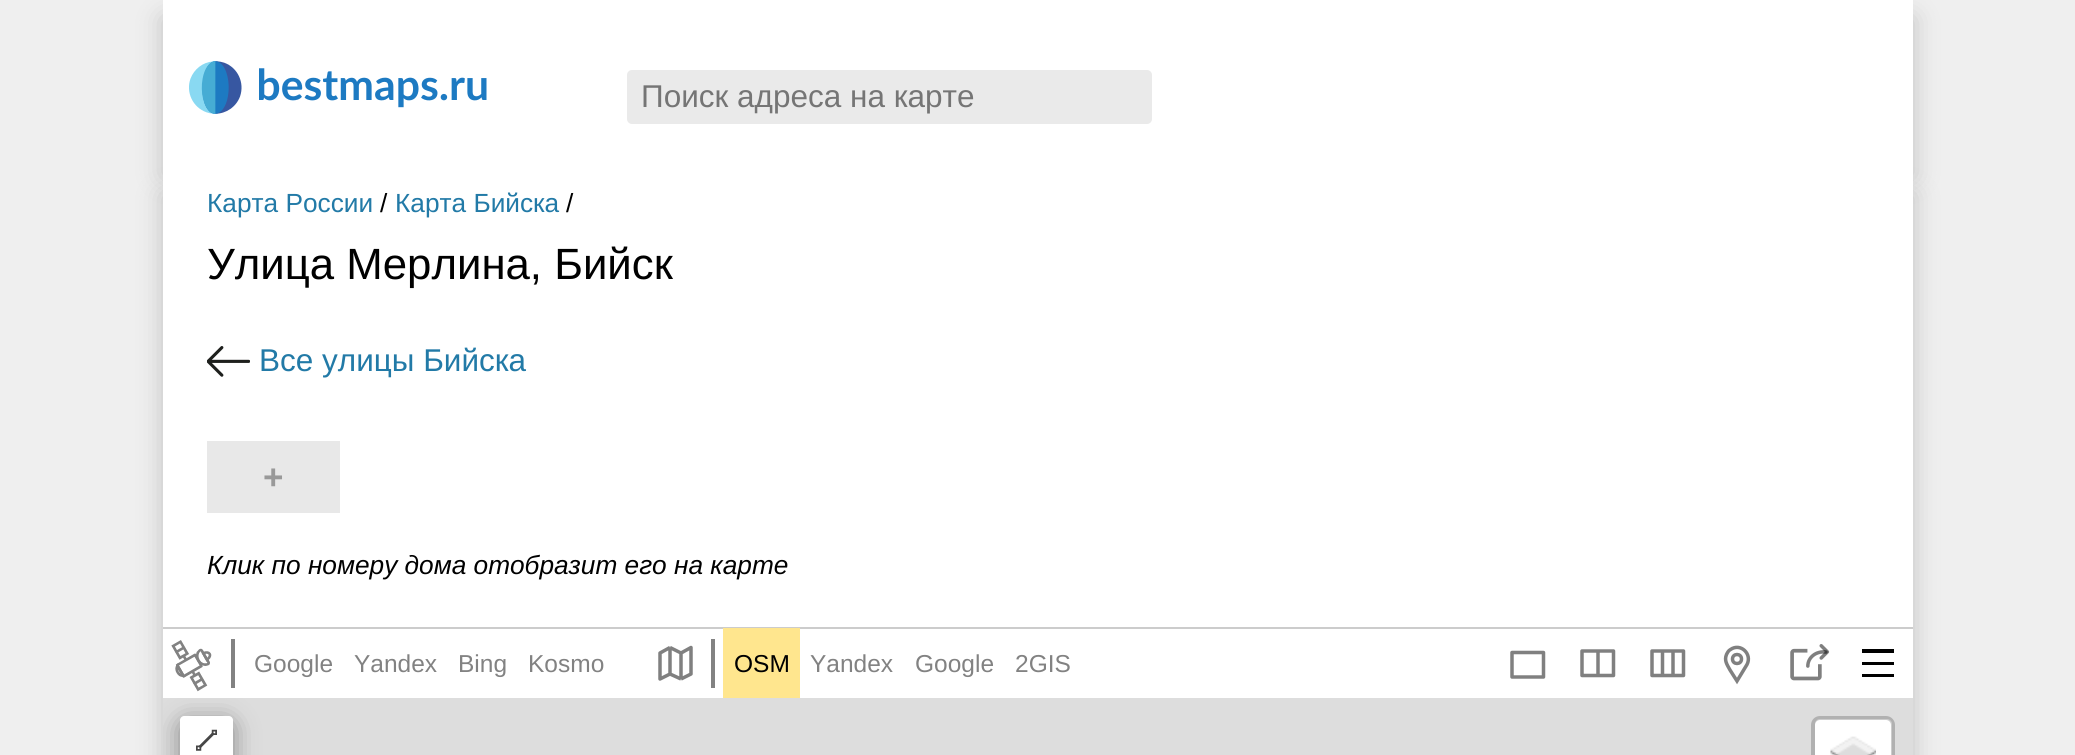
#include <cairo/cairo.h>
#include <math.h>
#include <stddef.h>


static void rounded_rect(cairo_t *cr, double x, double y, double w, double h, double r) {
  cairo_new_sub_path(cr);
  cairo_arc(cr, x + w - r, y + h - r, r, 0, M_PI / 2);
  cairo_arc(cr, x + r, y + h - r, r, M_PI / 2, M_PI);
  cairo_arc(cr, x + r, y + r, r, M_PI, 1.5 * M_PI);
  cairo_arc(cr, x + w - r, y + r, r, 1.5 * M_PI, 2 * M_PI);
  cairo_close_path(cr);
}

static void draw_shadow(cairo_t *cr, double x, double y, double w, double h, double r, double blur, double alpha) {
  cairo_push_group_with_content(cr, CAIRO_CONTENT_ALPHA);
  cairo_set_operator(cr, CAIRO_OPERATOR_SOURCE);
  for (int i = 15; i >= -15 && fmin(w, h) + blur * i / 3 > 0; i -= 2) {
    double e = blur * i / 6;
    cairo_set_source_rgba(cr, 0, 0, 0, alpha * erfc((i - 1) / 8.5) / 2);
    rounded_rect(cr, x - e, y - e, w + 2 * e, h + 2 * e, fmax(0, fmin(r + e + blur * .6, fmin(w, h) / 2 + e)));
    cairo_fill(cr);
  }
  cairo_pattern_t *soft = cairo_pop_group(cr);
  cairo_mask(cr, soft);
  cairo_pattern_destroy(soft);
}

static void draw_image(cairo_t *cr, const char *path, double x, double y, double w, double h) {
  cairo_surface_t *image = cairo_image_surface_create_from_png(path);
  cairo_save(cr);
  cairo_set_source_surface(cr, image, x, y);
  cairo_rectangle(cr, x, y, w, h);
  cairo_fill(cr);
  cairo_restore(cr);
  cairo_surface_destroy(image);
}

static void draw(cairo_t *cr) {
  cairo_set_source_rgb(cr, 239 / 255.0, 239 / 255.0, 239 / 255.0);
  cairo_paint(cr);
  cairo_set_source_rgb(cr, 0, 0, 0);
  draw_shadow(cr, 163, 18, 1750, 159, 0, 13, 0.2);
  cairo_set_source_rgb(cr, 1, 1, 1);
  cairo_rectangle(cr, 163, 0, 1750, 159);
  cairo_fill(cr);
  draw_image(cr, "images/1.png", 189, 61, 53, 53);
  draw_image(cr, "images/2.png", 259, 68, 228, 40);
  cairo_set_source_rgb(cr, 234 / 255.0, 234 / 255.0, 234 / 255.0);
  rounded_rect(cr, 627, 70, 525, 54, 5);
  cairo_fill(cr);
  cairo_set_source_rgb(cr, 0, 0, 0);
  draw_shadow(cr, 163, 194, 1750, 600, 0, 13, 0.2);
  cairo_set_source_rgb(cr, 1, 1, 1);
  cairo_rectangle(cr, 163, 159, 1750, 539);
  cairo_fill(cr);
  draw_image(cr, "images/3.png", 207, 346, 43, 31);
  cairo_set_source_rgb(cr, 232 / 255.0, 232 / 255.0, 232 / 255.0);
  cairo_rectangle(cr, 207, 441, 133, 72);
  cairo_fill(cr);
  cairo_set_source_rgb(cr, 204 / 255.0, 204 / 255.0, 204 / 255.0);
  cairo_rectangle(cr, 163, 627, 1750, 2);
  cairo_fill(cr);
  draw_image(cr, "images/4.png", 171, 640, 41, 52);
  cairo_set_source_rgb(cr, 130 / 255.0, 130 / 255.0, 130 / 255.0);
  cairo_rectangle(cr, 231, 639, 4, 49);
  cairo_fill(cr);
  cairo_new_path(cr);
  cairo_move_to(cr, 670, 674);
  cairo_line_to(cr, 660, 679);
  cairo_line_to(cr, 660, 653);
  cairo_line_to(cr, 670, 647.5);
  cairo_move_to(cr, 670, 674);
  cairo_line_to(cr, 681, 679);
  cairo_move_to(cr, 670, 674);
  cairo_line_to(cr, 670, 647.5);
  cairo_move_to(cr, 681, 679);
  cairo_line_to(cr, 691, 674);
  cairo_line_to(cr, 691, 647.5);
  cairo_line_to(cr, 681, 653);
  cairo_move_to(cr, 681, 679);
  cairo_line_to(cr, 681, 653);
  cairo_move_to(cr, 681, 653);
  cairo_line_to(cr, 670, 647.5);
  cairo_set_source_rgb(cr, 128 / 255.0, 128 / 255.0, 128 / 255.0);
  cairo_set_line_width(cr, 3.5);
  cairo_set_line_join(cr, CAIRO_LINE_JOIN_ROUND);
  cairo_stroke(cr);
  cairo_set_source_rgb(cr, 130 / 255.0, 130 / 255.0, 130 / 255.0);
  cairo_rectangle(cr, 711, 639, 4, 49);
  cairo_fill(cr);
  cairo_set_source_rgb(cr, 1, 230 / 255.0, 142 / 255.0);
  cairo_rectangle(cr, 723, 628, 77, 70);
  cairo_fill(cr);
  cairo_new_path(cr);
  cairo_move_to(cr, 1512, 677);
  cairo_line_to(cr, 1512, 652.5);
  cairo_line_to(cr, 1543.5, 652.5);
  cairo_line_to(cr, 1543.5, 677);
  cairo_close_path(cr);
  cairo_set_source_rgb(cr, 128 / 255.0, 128 / 255.0, 128 / 255.0);
  cairo_stroke(cr);
  cairo_new_path(cr);
  cairo_move_to(cr, 1598, 675.5);
  cairo_line_to(cr, 1582, 675.5);
  cairo_line_to(cr, 1582, 651);
  cairo_line_to(cr, 1598, 651);
  cairo_move_to(cr, 1598, 675.5);
  cairo_line_to(cr, 1613.5, 675.5);
  cairo_line_to(cr, 1613.5, 651);
  cairo_line_to(cr, 1598, 651);
  cairo_move_to(cr, 1598, 675.5);
  cairo_line_to(cr, 1598, 651);
  cairo_stroke(cr);
  cairo_new_path(cr);
  cairo_move_to(cr, 1662.5, 675.5);
  cairo_line_to(cr, 1652, 675.5);
  cairo_line_to(cr, 1652, 651);
  cairo_line_to(cr, 1662.5, 651);
  cairo_move_to(cr, 1662.5, 675.5);
  cairo_line_to(cr, 1673, 675.5);
  cairo_move_to(cr, 1662.5, 675.5);
  cairo_line_to(cr, 1662.5, 651);
  cairo_move_to(cr, 1673, 675.5);
  cairo_line_to(cr, 1683.5, 675.5);
  cairo_line_to(cr, 1683.5, 651);
  cairo_line_to(cr, 1673, 651);
  cairo_move_to(cr, 1673, 675.5);
  cairo_line_to(cr, 1673, 651);
  cairo_move_to(cr, 1673, 651);
  cairo_line_to(cr, 1662.5, 651);
  cairo_stroke(cr);
  cairo_new_path(cr);
  cairo_move_to(cr, 1747, 664.5);
  cairo_line_to(cr, 1737, 681);
  cairo_line_to(cr, 1730, 670);
  cairo_curve_to(cr, 1727, 664.5, 1724, 660.5, 1726.5, 654.5);
  cairo_curve_to(cr, 1727.5, 652.5, 1728.5, 650.5, 1730.5, 649.5);
  cairo_curve_to(cr, 1740.5, 642.5, 1752.5, 654, 1747, 664.5);
  cairo_close_path(cr);
  cairo_set_line_join(cr, CAIRO_LINE_JOIN_MITER);
  cairo_stroke(cr);
  cairo_arc(cr, 1737, 659, 4.5, 0, 2 * M_PI);
  cairo_stroke(cr);
  draw_image(cr, "images/5.png", 1790, 644, 40, 37);
  cairo_set_source_rgb(cr, 0, 0, 0);
  cairo_rectangle(cr, 1862, 662, 32, 3);
  cairo_fill(cr);
  cairo_rectangle(cr, 1862, 649, 32, 4);
  cairo_fill(cr);
  cairo_rectangle(cr, 1862, 674, 32, 3);
  cairo_fill(cr);
  cairo_set_source_rgb(cr, 221 / 255.0, 221 / 255.0, 221 / 255.0);
  cairo_rectangle(cr, 163, 698, 1750, 57);
  cairo_fill(cr);
  cairo_save(cr);
  cairo_rectangle(cr, 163, 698, 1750, 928);
  cairo_clip(cr);
  cairo_set_source_rgb(cr, 0, 0, 0);
  draw_shadow(cr, 180, 721, 53, 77, 7, 12, 0.4);
  cairo_restore(cr);
  cairo_set_source_rgb(cr, 1, 1, 1);
  cairo_new_path(cr);
  cairo_move_to(cr, 184, 716);
  cairo_line_to(cr, 229, 716);
  cairo_curve_to(cr, 231, 716, 233, 718, 233, 720);
  cairo_line_to(cr, 233, 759);
  cairo_line_to(cr, 180, 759);
  cairo_line_to(cr, 180, 720);
  cairo_curve_to(cr, 180, 718, 182, 716, 184, 716);
  cairo_close_path(cr);
  cairo_fill(cr);
  draw_image(cr, "images/6.png", 196, 729, 21, 22);
  rounded_rect(cr, 1815, 719, 77, 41, 5);
  cairo_fill(cr);
  rounded_rect(cr, 1813, 718, 80, 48, 7);
  cairo_set_source_rgba(cr, 0, 0, 0, 0.2);
  cairo_set_line_width(cr, 4);
  cairo_stroke(cr);
  draw_image(cr, "images/7.png", 1830, 736, 46, 19);
  cairo_select_font_face(cr, "Liberation Sans", CAIRO_FONT_SLANT_NORMAL, CAIRO_FONT_WEIGHT_NORMAL);
  cairo_set_font_size(cr, 31.5);
  cairo_set_source_rgb(cr, 117 / 255.0, 117 / 255.0, 117 / 255.0);
  cairo_move_to(cr, 641, 107);
  cairo_show_text(cr, "Поиск адреса на карте");
  cairo_set_font_size(cr, 26.25);
  cairo_set_source_rgb(cr, 34 / 255.0, 122 / 255.0, 167 / 255.0);
  cairo_move_to(cr, 207, 212);
  cairo_show_text(cr, "Карта России");
  cairo_set_source_rgb(cr, 0, 0, 0);
  cairo_move_to(cr, 380, 212);
  cairo_show_text(cr, "/");
  cairo_set_source_rgb(cr, 34 / 255.0, 122 / 255.0, 167 / 255.0);
  cairo_move_to(cr, 395, 212);
  cairo_show_text(cr, "Карта Бийска");
  cairo_set_source_rgb(cr, 0, 0, 0);
  cairo_move_to(cr, 566, 212);
  cairo_show_text(cr, "/");
  cairo_set_font_size(cr, 43.75);
  cairo_move_to(cr, 207, 279);
  cairo_show_text(cr, "Улица Мерлина, Бийск");
  cairo_set_font_size(cr, 31.5);
  cairo_set_source_rgb(cr, 34 / 255.0, 122 / 255.0, 167 / 255.0);
  cairo_move_to(cr, 259, 371);
  cairo_show_text(cr, "Все улицы Бийска");
  cairo_select_font_face(cr, "Liberation Sans", CAIRO_FONT_SLANT_NORMAL, CAIRO_FONT_WEIGHT_BOLD);
  cairo_set_font_size(cr, 35);
  cairo_set_source_rgb(cr, 153 / 255.0, 153 / 255.0, 153 / 255.0);
  cairo_move_to(cr, 263, 489);
  cairo_show_text(cr, "+");
  cairo_select_font_face(cr, "Liberation Sans", CAIRO_FONT_SLANT_ITALIC, CAIRO_FONT_WEIGHT_NORMAL);
  cairo_set_font_size(cr, 26.25);
  cairo_set_source_rgb(cr, 0, 0, 0);
  cairo_move_to(cr, 207, 574);
  cairo_show_text(cr, "Клик по номеру дома отобразит его на карте");
  cairo_select_font_face(cr, "Liberation Sans", CAIRO_FONT_SLANT_NORMAL, CAIRO_FONT_WEIGHT_NORMAL);
  cairo_set_font_size(cr, 24.5);
  cairo_set_source_rgb(cr, 130 / 255.0, 130 / 255.0, 130 / 255.0);
  cairo_move_to(cr, 254, 672);
  cairo_show_text(cr, "Google");
  cairo_move_to(cr, 354, 672);
  cairo_show_text(cr, "Yandex");
  cairo_move_to(cr, 458, 672);
  cairo_show_text(cr, "Bing");
  cairo_move_to(cr, 528, 672);
  cairo_show_text(cr, "Kosmo");
  cairo_set_source_rgb(cr, 0, 0, 0);
  cairo_move_to(cr, 734, 672);
  cairo_show_text(cr, "OSM");
  cairo_set_source_rgb(cr, 130 / 255.0, 130 / 255.0, 130 / 255.0);
  cairo_move_to(cr, 810, 672);
  cairo_show_text(cr, "Yandex");
  cairo_move_to(cr, 915, 672);
  cairo_show_text(cr, "Google");
  cairo_move_to(cr, 1015, 672);
  cairo_show_text(cr, "2GIS");
}

int main(void) {
  cairo_surface_t *surface = cairo_image_surface_create(CAIRO_FORMAT_RGB24, 2075, 755);
  cairo_t *cr = cairo_create(surface);
  cairo_font_options_t *options = cairo_font_options_create();
  cairo_font_options_set_hint_metrics(options, CAIRO_HINT_METRICS_OFF);
  cairo_font_options_set_hint_style(options, CAIRO_HINT_STYLE_NONE);
  cairo_set_font_options(cr, options);
  cairo_set_miter_limit(cr, 4);
  draw(cr);
  cairo_surface_write_to_png(surface, "out.png");
  cairo_font_options_destroy(options);
  cairo_destroy(cr);
  cairo_surface_destroy(surface);
  return 0;
}
